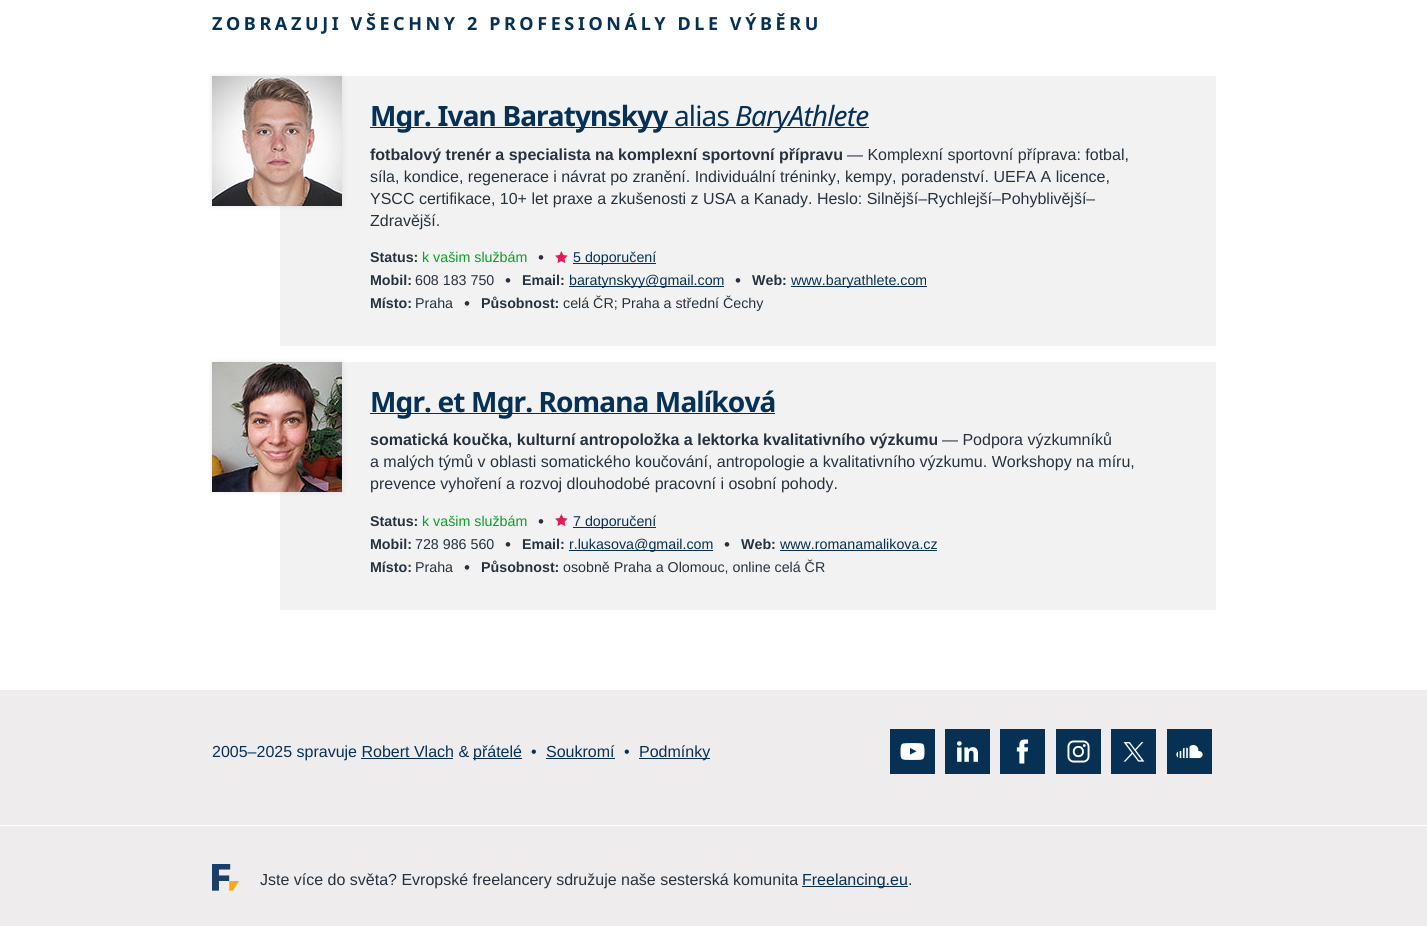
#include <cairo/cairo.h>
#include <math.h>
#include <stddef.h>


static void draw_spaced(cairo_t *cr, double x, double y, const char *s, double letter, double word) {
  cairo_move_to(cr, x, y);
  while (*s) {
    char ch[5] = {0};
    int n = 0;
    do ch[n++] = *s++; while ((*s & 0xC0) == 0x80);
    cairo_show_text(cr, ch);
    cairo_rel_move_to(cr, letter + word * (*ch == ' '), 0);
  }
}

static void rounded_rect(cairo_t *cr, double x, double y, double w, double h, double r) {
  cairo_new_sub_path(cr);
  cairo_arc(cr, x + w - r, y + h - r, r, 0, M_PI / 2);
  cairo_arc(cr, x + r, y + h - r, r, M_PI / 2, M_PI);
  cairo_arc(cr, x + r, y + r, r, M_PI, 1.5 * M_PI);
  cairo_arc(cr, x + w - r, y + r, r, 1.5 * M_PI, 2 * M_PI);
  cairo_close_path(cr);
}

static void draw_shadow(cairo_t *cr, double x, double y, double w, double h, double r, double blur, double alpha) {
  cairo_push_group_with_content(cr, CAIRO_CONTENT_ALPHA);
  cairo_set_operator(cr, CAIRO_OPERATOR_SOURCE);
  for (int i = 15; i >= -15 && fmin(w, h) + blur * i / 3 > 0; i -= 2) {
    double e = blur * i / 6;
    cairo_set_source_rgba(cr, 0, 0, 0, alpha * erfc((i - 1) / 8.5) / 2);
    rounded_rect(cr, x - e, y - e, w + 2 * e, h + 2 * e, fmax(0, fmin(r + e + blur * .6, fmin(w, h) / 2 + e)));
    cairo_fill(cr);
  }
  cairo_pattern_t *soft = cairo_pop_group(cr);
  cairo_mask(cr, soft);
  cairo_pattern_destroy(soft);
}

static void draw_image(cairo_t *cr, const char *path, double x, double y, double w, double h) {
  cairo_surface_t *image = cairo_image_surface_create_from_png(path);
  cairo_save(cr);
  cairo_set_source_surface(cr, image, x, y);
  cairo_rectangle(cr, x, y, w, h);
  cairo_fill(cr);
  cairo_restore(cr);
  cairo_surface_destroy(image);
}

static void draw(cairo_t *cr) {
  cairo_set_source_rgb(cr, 1, 1, 1);
  cairo_paint(cr);
  cairo_set_source_rgb(cr, 242 / 255.0, 242 / 255.0, 242 / 255.0);
  cairo_rectangle(cr, 280, 76, 936, 270);
  cairo_fill(cr);
  cairo_set_source_rgb(cr, 0, 0, 0);
  draw_shadow(cr, 212, 76, 130, 130, 0, 2.5, 0.1);
  draw_image(cr, "images/1.png", 212, 76, 130, 130);
  cairo_set_source_rgb(cr, 7 / 255.0, 48 / 255.0, 85 / 255.0);
  cairo_rectangle(cr, 370, 127, 499, 1);
  cairo_fill(cr);
  draw_image(cr, "images/2.png", 555, 251, 13, 12);
  cairo_rectangle(cr, 573, 263, 83, 1);
  cairo_fill(cr);
  cairo_rectangle(cr, 569, 286, 155, 1);
  cairo_fill(cr);
  cairo_rectangle(cr, 791, 286, 136, 1);
  cairo_fill(cr);
  cairo_set_source_rgb(cr, 242 / 255.0, 242 / 255.0, 242 / 255.0);
  cairo_rectangle(cr, 280, 362, 936, 248);
  cairo_fill(cr);
  cairo_set_source_rgb(cr, 0, 0, 0);
  draw_shadow(cr, 212, 362, 130, 130, 0, 2.5, 0.1);
  draw_image(cr, "images/3.png", 212, 362, 130, 130);
  cairo_set_source_rgb(cr, 7 / 255.0, 48 / 255.0, 85 / 255.0);
  cairo_rectangle(cr, 370, 413, 405, 1);
  cairo_fill(cr);
  draw_image(cr, "images/2.png", 555, 514, 13, 12);
  cairo_rectangle(cr, 573, 527, 83, 1);
  cairo_fill(cr);
  cairo_rectangle(cr, 569, 550, 144, 1);
  cairo_fill(cr);
  cairo_rectangle(cr, 780, 550, 157, 1);
  cairo_fill(cr);
  cairo_set_source_rgb(cr, 238 / 255.0, 236 / 255.0, 236 / 255.0);
  cairo_rectangle(cr, 0, 690, 1427, 135);
  cairo_fill(cr);
  cairo_set_source_rgb(cr, 7 / 255.0, 48 / 255.0, 85 / 255.0);
  cairo_rectangle(cr, 473, 758, 49, 1);
  cairo_fill(cr);
  cairo_rectangle(cr, 546, 758, 69, 1);
  cairo_fill(cr);
  cairo_rectangle(cr, 639, 758, 71, 1);
  cairo_fill(cr);
  cairo_rectangle(cr, 361, 758, 92, 1);
  cairo_fill(cr);
  cairo_rectangle(cr, 890, 729, 45, 45);
  cairo_fill(cr);
  draw_image(cr, "images/4.png", 900, 743, 25, 17);
  cairo_rectangle(cr, 945, 729, 45, 45);
  cairo_fill(cr);
  draw_image(cr, "images/5.png", 957, 741, 21, 21);
  cairo_rectangle(cr, 1000, 729, 45, 45);
  cairo_fill(cr);
  draw_image(cr, "images/6.png", 1016, 739, 13, 25);
  cairo_rectangle(cr, 1056, 729, 45, 45);
  cairo_fill(cr);
  draw_image(cr, "images/7.png", 1067, 740, 23, 23);
  cairo_rectangle(cr, 1111, 729, 45, 45);
  cairo_fill(cr);
  draw_image(cr, "images/8.png", 1123, 742, 22, 20);
  cairo_rectangle(cr, 1167, 729, 45, 45);
  cairo_fill(cr);
  draw_image(cr, "images/9.png", 1176, 744, 27, 15);
  cairo_set_source_rgb(cr, 238 / 255.0, 236 / 255.0, 236 / 255.0);
  cairo_rectangle(cr, 0, 826, 1427, 100);
  cairo_fill(cr);
  draw_image(cr, "images/10.png", 212, 864, 27, 27);
  cairo_set_source_rgb(cr, 7 / 255.0, 48 / 255.0, 85 / 255.0);
  cairo_rectangle(cr, 802, 886, 106, 1);
  cairo_fill(cr);
  cairo_select_font_face(cr, "Noto Sans", CAIRO_FONT_SLANT_NORMAL, CAIRO_FONT_WEIGHT_BOLD);
  cairo_set_font_size(cr, 18);
  draw_spaced(cr, 212, 30, "ZOBRAZUJI VŠECHNY 2 PROFESIONÁLY DLE VÝBĚRU", 3.6, 0);
  cairo_set_font_size(cr, 28);
  draw_spaced(cr, 370, 126, "Mgr. Ivan Baratynskyy", -0.85, 0);
  cairo_select_font_face(cr, "Noto Sans", CAIRO_FONT_SLANT_NORMAL, CAIRO_FONT_WEIGHT_NORMAL);
  draw_spaced(cr, 674, 126, "alias", -0.85, 0);
  cairo_select_font_face(cr, "Noto Sans", CAIRO_FONT_SLANT_ITALIC, CAIRO_FONT_WEIGHT_NORMAL);
  draw_spaced(cr, 735, 126, "BaryAthlete", -0.85, 0);
  cairo_select_font_face(cr, "Liberation Sans", CAIRO_FONT_SLANT_NORMAL, CAIRO_FONT_WEIGHT_BOLD);
  cairo_set_font_size(cr, 16);
  cairo_set_source_rgb(cr, 39 / 255.0, 50 / 255.0, 62 / 255.0);
  cairo_move_to(cr, 370, 160);
  cairo_show_text(cr, "fotbalový trenér a specialista na komplexní sportovní přípravu");
  cairo_select_font_face(cr, "Liberation Sans", CAIRO_FONT_SLANT_NORMAL, CAIRO_FONT_WEIGHT_NORMAL);
  cairo_move_to(cr, 847, 160);
  cairo_show_text(cr, "— Komplexní sportovní příprava: fotbal,");
  cairo_move_to(cr, 370, 182);
  cairo_show_text(cr, "síla, kondice, regenerace i návrat po zranění. Individuální tréninky, kempy, poradenství. UEFA A licence,");
  cairo_move_to(cr, 370, 204);
  cairo_show_text(cr, "YSCC certifikace, 10+ let praxe a zkušenosti z USA a Kanady. Heslo: Silnější–Rychlejší–Pohyblivější–");
  cairo_move_to(cr, 370, 226);
  cairo_show_text(cr, "Zdravější.");
  cairo_select_font_face(cr, "Liberation Sans", CAIRO_FONT_SLANT_NORMAL, CAIRO_FONT_WEIGHT_BOLD);
  cairo_set_font_size(cr, 14.25);
  cairo_move_to(cr, 370, 262);
  cairo_show_text(cr, "Status:");
  cairo_select_font_face(cr, "Liberation Sans", CAIRO_FONT_SLANT_NORMAL, CAIRO_FONT_WEIGHT_NORMAL);
  cairo_set_source_rgb(cr, 11 / 255.0, 158 / 255.0, 40 / 255.0);
  cairo_move_to(cr, 422, 262);
  cairo_show_text(cr, "k vašim službám");
  cairo_set_font_size(cr, 17);
  cairo_set_source_rgb(cr, 39 / 255.0, 50 / 255.0, 62 / 255.0);
  cairo_move_to(cr, 538, 263);
  cairo_show_text(cr, "•");
  cairo_set_font_size(cr, 14.25);
  cairo_set_source_rgb(cr, 7 / 255.0, 48 / 255.0, 85 / 255.0);
  cairo_move_to(cr, 573, 262);
  cairo_show_text(cr, "5 doporučení");
  cairo_select_font_face(cr, "Liberation Sans", CAIRO_FONT_SLANT_NORMAL, CAIRO_FONT_WEIGHT_BOLD);
  cairo_set_source_rgb(cr, 39 / 255.0, 50 / 255.0, 62 / 255.0);
  cairo_move_to(cr, 370, 285);
  cairo_show_text(cr, "Mobil:");
  cairo_select_font_face(cr, "Liberation Sans", CAIRO_FONT_SLANT_NORMAL, CAIRO_FONT_WEIGHT_NORMAL);
  cairo_move_to(cr, 415, 285);
  cairo_show_text(cr, "608 183 750");
  cairo_set_font_size(cr, 17);
  cairo_move_to(cr, 505, 286);
  cairo_show_text(cr, "•");
  cairo_select_font_face(cr, "Liberation Sans", CAIRO_FONT_SLANT_NORMAL, CAIRO_FONT_WEIGHT_BOLD);
  cairo_set_font_size(cr, 14.25);
  cairo_move_to(cr, 522, 285);
  cairo_show_text(cr, "Email:");
  cairo_select_font_face(cr, "Liberation Sans", CAIRO_FONT_SLANT_NORMAL, CAIRO_FONT_WEIGHT_NORMAL);
  cairo_set_source_rgb(cr, 7 / 255.0, 48 / 255.0, 85 / 255.0);
  cairo_move_to(cr, 569, 285);
  cairo_show_text(cr, "baratynskyy@gmail.com");
  cairo_set_font_size(cr, 17);
  cairo_set_source_rgb(cr, 39 / 255.0, 50 / 255.0, 62 / 255.0);
  cairo_move_to(cr, 735, 286);
  cairo_show_text(cr, "•");
  cairo_select_font_face(cr, "Liberation Sans", CAIRO_FONT_SLANT_NORMAL, CAIRO_FONT_WEIGHT_BOLD);
  cairo_set_font_size(cr, 14.25);
  cairo_move_to(cr, 752, 285);
  cairo_show_text(cr, "Web:");
  cairo_select_font_face(cr, "Liberation Sans", CAIRO_FONT_SLANT_NORMAL, CAIRO_FONT_WEIGHT_NORMAL);
  cairo_set_source_rgb(cr, 7 / 255.0, 48 / 255.0, 85 / 255.0);
  cairo_move_to(cr, 791, 285);
  cairo_show_text(cr, "www.baryathlete.com");
  cairo_select_font_face(cr, "Liberation Sans", CAIRO_FONT_SLANT_NORMAL, CAIRO_FONT_WEIGHT_BOLD);
  cairo_set_source_rgb(cr, 39 / 255.0, 50 / 255.0, 62 / 255.0);
  cairo_move_to(cr, 370, 308);
  cairo_show_text(cr, "Místo:");
  cairo_select_font_face(cr, "Liberation Sans", CAIRO_FONT_SLANT_NORMAL, CAIRO_FONT_WEIGHT_NORMAL);
  cairo_move_to(cr, 415, 308);
  cairo_show_text(cr, "Praha");
  cairo_set_font_size(cr, 17);
  cairo_move_to(cr, 464, 309);
  cairo_show_text(cr, "•");
  cairo_select_font_face(cr, "Liberation Sans", CAIRO_FONT_SLANT_NORMAL, CAIRO_FONT_WEIGHT_BOLD);
  cairo_set_font_size(cr, 14.25);
  cairo_move_to(cr, 481, 308);
  cairo_show_text(cr, "Působnost:");
  cairo_select_font_face(cr, "Liberation Sans", CAIRO_FONT_SLANT_NORMAL, CAIRO_FONT_WEIGHT_NORMAL);
  cairo_move_to(cr, 563, 308);
  cairo_show_text(cr, "celá ČR; Praha a střední Čechy");
  cairo_select_font_face(cr, "Noto Sans", CAIRO_FONT_SLANT_NORMAL, CAIRO_FONT_WEIGHT_BOLD);
  cairo_set_font_size(cr, 28);
  cairo_set_source_rgb(cr, 7 / 255.0, 48 / 255.0, 85 / 255.0);
  draw_spaced(cr, 370, 412, "Mgr. et Mgr. Romana Malíková", -0.85, 0);
  cairo_select_font_face(cr, "Liberation Sans", CAIRO_FONT_SLANT_NORMAL, CAIRO_FONT_WEIGHT_BOLD);
  cairo_set_font_size(cr, 16);
  cairo_set_source_rgb(cr, 39 / 255.0, 50 / 255.0, 62 / 255.0);
  cairo_move_to(cr, 370, 445);
  cairo_show_text(cr, "somatická koučka, kulturní antropoložka a lektorka kvalitativního výzkumu");
  cairo_select_font_face(cr, "Liberation Sans", CAIRO_FONT_SLANT_NORMAL, CAIRO_FONT_WEIGHT_NORMAL);
  cairo_move_to(cr, 942, 445);
  cairo_show_text(cr, "— Podpora výzkumníků");
  cairo_move_to(cr, 370, 467);
  cairo_show_text(cr, "a malých týmů v oblasti somatického koučování, antropologie a kvalitativního výzkumu. Workshopy na míru,");
  cairo_move_to(cr, 370, 489);
  cairo_show_text(cr, "prevence vyhoření a rozvoj dlouhodobé pracovní i osobní pohody.");
  cairo_select_font_face(cr, "Liberation Sans", CAIRO_FONT_SLANT_NORMAL, CAIRO_FONT_WEIGHT_BOLD);
  cairo_set_font_size(cr, 14.25);
  cairo_move_to(cr, 370, 526);
  cairo_show_text(cr, "Status:");
  cairo_select_font_face(cr, "Liberation Sans", CAIRO_FONT_SLANT_NORMAL, CAIRO_FONT_WEIGHT_NORMAL);
  cairo_set_source_rgb(cr, 11 / 255.0, 158 / 255.0, 40 / 255.0);
  cairo_move_to(cr, 422, 526);
  cairo_show_text(cr, "k vašim službám");
  cairo_set_font_size(cr, 17);
  cairo_set_source_rgb(cr, 39 / 255.0, 50 / 255.0, 62 / 255.0);
  cairo_move_to(cr, 538, 527);
  cairo_show_text(cr, "•");
  cairo_set_font_size(cr, 14.25);
  cairo_set_source_rgb(cr, 7 / 255.0, 48 / 255.0, 85 / 255.0);
  cairo_move_to(cr, 573, 526);
  cairo_show_text(cr, "7 doporučení");
  cairo_select_font_face(cr, "Liberation Sans", CAIRO_FONT_SLANT_NORMAL, CAIRO_FONT_WEIGHT_BOLD);
  cairo_set_source_rgb(cr, 39 / 255.0, 50 / 255.0, 62 / 255.0);
  cairo_move_to(cr, 370, 549);
  cairo_show_text(cr, "Mobil:");
  cairo_select_font_face(cr, "Liberation Sans", CAIRO_FONT_SLANT_NORMAL, CAIRO_FONT_WEIGHT_NORMAL);
  cairo_move_to(cr, 415, 549);
  cairo_show_text(cr, "728 986 560");
  cairo_set_font_size(cr, 17);
  cairo_move_to(cr, 505, 550);
  cairo_show_text(cr, "•");
  cairo_select_font_face(cr, "Liberation Sans", CAIRO_FONT_SLANT_NORMAL, CAIRO_FONT_WEIGHT_BOLD);
  cairo_set_font_size(cr, 14.25);
  cairo_move_to(cr, 522, 549);
  cairo_show_text(cr, "Email:");
  cairo_select_font_face(cr, "Liberation Sans", CAIRO_FONT_SLANT_NORMAL, CAIRO_FONT_WEIGHT_NORMAL);
  cairo_set_source_rgb(cr, 7 / 255.0, 48 / 255.0, 85 / 255.0);
  cairo_move_to(cr, 569, 549);
  cairo_show_text(cr, "r.lukasova@gmail.com");
  cairo_set_font_size(cr, 17);
  cairo_set_source_rgb(cr, 39 / 255.0, 50 / 255.0, 62 / 255.0);
  cairo_move_to(cr, 724, 550);
  cairo_show_text(cr, "•");
  cairo_select_font_face(cr, "Liberation Sans", CAIRO_FONT_SLANT_NORMAL, CAIRO_FONT_WEIGHT_BOLD);
  cairo_set_font_size(cr, 14.25);
  cairo_move_to(cr, 741, 549);
  cairo_show_text(cr, "Web:");
  cairo_select_font_face(cr, "Liberation Sans", CAIRO_FONT_SLANT_NORMAL, CAIRO_FONT_WEIGHT_NORMAL);
  cairo_set_source_rgb(cr, 7 / 255.0, 48 / 255.0, 85 / 255.0);
  cairo_move_to(cr, 780, 549);
  cairo_show_text(cr, "www.romanamalikova.cz");
  cairo_select_font_face(cr, "Liberation Sans", CAIRO_FONT_SLANT_NORMAL, CAIRO_FONT_WEIGHT_BOLD);
  cairo_set_source_rgb(cr, 39 / 255.0, 50 / 255.0, 62 / 255.0);
  cairo_move_to(cr, 370, 572);
  cairo_show_text(cr, "Místo:");
  cairo_select_font_face(cr, "Liberation Sans", CAIRO_FONT_SLANT_NORMAL, CAIRO_FONT_WEIGHT_NORMAL);
  cairo_move_to(cr, 415, 572);
  cairo_show_text(cr, "Praha");
  cairo_set_font_size(cr, 17);
  cairo_move_to(cr, 464, 573);
  cairo_show_text(cr, "•");
  cairo_select_font_face(cr, "Liberation Sans", CAIRO_FONT_SLANT_NORMAL, CAIRO_FONT_WEIGHT_BOLD);
  cairo_set_font_size(cr, 14.25);
  cairo_move_to(cr, 481, 572);
  cairo_show_text(cr, "Působnost:");
  cairo_select_font_face(cr, "Liberation Sans", CAIRO_FONT_SLANT_NORMAL, CAIRO_FONT_WEIGHT_NORMAL);
  cairo_move_to(cr, 563, 572);
  cairo_show_text(cr, "osobně Praha a Olomouc, online celá ČR");
  cairo_set_font_size(cr, 16);
  cairo_set_source_rgb(cr, 7 / 255.0, 48 / 255.0, 85 / 255.0);
  cairo_move_to(cr, 212, 757);
  cairo_show_text(cr, "2005–2025 spravuje Robert Vlach &");
  cairo_move_to(cr, 473, 757);
  cairo_show_text(cr, "přátelé");
  cairo_move_to(cr, 531, 757);
  cairo_show_text(cr, "•");
  cairo_move_to(cr, 546, 757);
  cairo_show_text(cr, "Soukromí");
  cairo_move_to(cr, 624, 757);
  cairo_show_text(cr, "•");
  cairo_move_to(cr, 639, 757);
  cairo_show_text(cr, "Podmínky");
  cairo_set_source_rgb(cr, 39 / 255.0, 50 / 255.0, 62 / 255.0);
  cairo_move_to(cr, 260, 885);
  cairo_show_text(cr, "Jste více do světa? Evropské freelancery sdružuje naše sesterská komunita");
  cairo_set_source_rgb(cr, 7 / 255.0, 48 / 255.0, 85 / 255.0);
  cairo_move_to(cr, 802, 885);
  cairo_show_text(cr, "Freelancing.eu");
  cairo_set_source_rgb(cr, 39 / 255.0, 50 / 255.0, 62 / 255.0);
  cairo_move_to(cr, 908, 885);
  cairo_show_text(cr, ".");
}

int main(void) {
  cairo_surface_t *surface = cairo_image_surface_create(CAIRO_FORMAT_RGB24, 1427, 926);
  cairo_t *cr = cairo_create(surface);
  cairo_font_options_t *options = cairo_font_options_create();
  cairo_font_options_set_hint_metrics(options, CAIRO_HINT_METRICS_OFF);
  cairo_font_options_set_hint_style(options, CAIRO_HINT_STYLE_NONE);
  cairo_set_font_options(cr, options);
  cairo_set_miter_limit(cr, 4);
  draw(cr);
  cairo_surface_write_to_png(surface, "out.png");
  cairo_font_options_destroy(options);
  cairo_destroy(cr);
  cairo_surface_destroy(surface);
  return 0;
}
